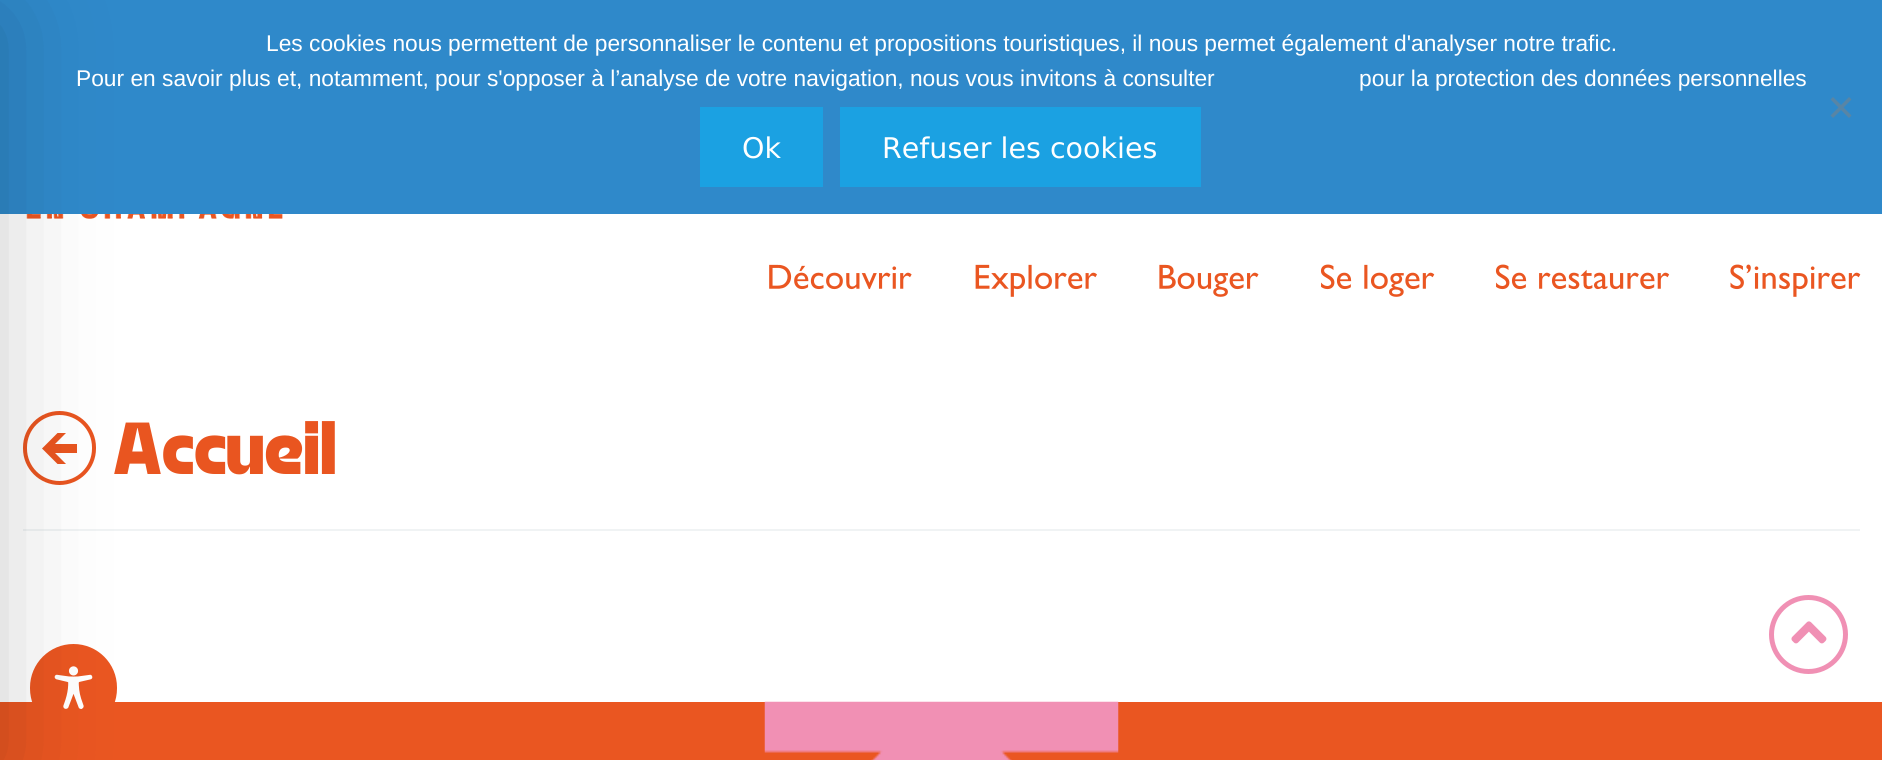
#include <cairo/cairo.h>
#include <math.h>
#include <stddef.h>


static void rounded_rect(cairo_t *cr, double x, double y, double w, double h, double r) {
  cairo_new_sub_path(cr);
  cairo_arc(cr, x + w - r, y + h - r, r, 0, M_PI / 2);
  cairo_arc(cr, x + r, y + h - r, r, M_PI / 2, M_PI);
  cairo_arc(cr, x + r, y + r, r, M_PI, 1.5 * M_PI);
  cairo_arc(cr, x + w - r, y + r, r, 1.5 * M_PI, 2 * M_PI);
  cairo_close_path(cr);
}

static void draw_shadow(cairo_t *cr, double x, double y, double w, double h, double r, double blur, double alpha) {
  cairo_push_group_with_content(cr, CAIRO_CONTENT_ALPHA);
  cairo_set_operator(cr, CAIRO_OPERATOR_SOURCE);
  for (int i = 15; i >= -15 && fmin(w, h) + blur * i / 3 > 0; i -= 2) {
    double e = blur * i / 6;
    cairo_set_source_rgba(cr, 0, 0, 0, alpha * erfc((i - 1) / 8.5) / 2);
    rounded_rect(cr, x - e, y - e, w + 2 * e, h + 2 * e, fmax(0, fmin(r + e + blur * .6, fmin(w, h) / 2 + e)));
    cairo_fill(cr);
  }
  cairo_pattern_t *soft = cairo_pop_group(cr);
  cairo_mask(cr, soft);
  cairo_pattern_destroy(soft);
}

static void draw_image(cairo_t *cr, const char *path, double x, double y, double w, double h) {
  cairo_surface_t *image = cairo_image_surface_create_from_png(path);
  cairo_save(cr);
  cairo_set_source_surface(cr, image, x, y);
  cairo_rectangle(cr, x, y, w, h);
  cairo_fill(cr);
  cairo_restore(cr);
  cairo_surface_destroy(image);
}

static void draw(cairo_t *cr) {
  cairo_set_source_rgb(cr, 1, 1, 1);
  cairo_paint(cr);
  cairo_set_source_rgb(cr, 47 / 255.0, 137 / 255.0, 202 / 255.0);
  cairo_rectangle(cr, 0, 0, 1882, 214);
  cairo_fill(cr);
  draw_image(cr, "images/1.png", 26, 214, 257, 5);
  rounded_rect(cr, 25, 413, 69, 70, 34.5);
  cairo_set_source_rgb(cr, 233 / 255.0, 85 / 255.0, 32 / 255.0);
  cairo_set_line_width(cr, 4);
  cairo_stroke(cr);
  cairo_new_path(cr);
  cairo_move_to(cr, 57.5, 464);
  cairo_line_to(cr, 66, 464);
  cairo_line_to(cr, 55, 453);
  cairo_line_to(cr, 77, 453);
  cairo_line_to(cr, 77, 444);
  cairo_line_to(cr, 55, 444);
  cairo_line_to(cr, 66, 433);
  cairo_line_to(cr, 57.5, 433);
  cairo_line_to(cr, 42, 448.5);
  cairo_close_path(cr);
  cairo_fill(cr);
  cairo_set_source_rgb(cr, 240 / 255.0, 243 / 255.0, 244 / 255.0);
  cairo_rectangle(cr, 23, 529, 1837, 2);
  cairo_fill(cr);
  cairo_set_source_rgb(cr, 234 / 255.0, 86 / 255.0, 33 / 255.0);
  cairo_rectangle(cr, 0, 702, 1882, 58);
  cairo_fill(cr);
  rounded_rect(cr, 30, 644, 87, 88, 43.5);
  cairo_fill(cr);
  draw_image(cr, "images/9.png", 54, 666, 39, 43);
  cairo_set_source_rgb(cr, 0, 0, 0);
  draw_shadow(cr, -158, 18, 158, 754, 0, 52.5, 0.2);
  cairo_set_source_rgb(cr, 88 / 255.0, 133 / 255.0, 165 / 255.0);
  cairo_new_path(cr);
  cairo_move_to(cr, 1849, 97);
  cairo_line_to(cr, 1851.5, 99.5);
  cairo_line_to(cr, 1833, 118);
  cairo_line_to(cr, 1830.5, 115.5);
  cairo_close_path(cr);
  cairo_fill(cr);
  cairo_new_path(cr);
  cairo_move_to(cr, 1830.5, 99.5);
  cairo_line_to(cr, 1833, 97);
  cairo_line_to(cr, 1851.5, 115.5);
  cairo_line_to(cr, 1849, 118);
  cairo_close_path(cr);
  cairo_fill(cr);
  cairo_set_source_rgb(cr, 27 / 255.0, 161 / 255.0, 226 / 255.0);
  cairo_rectangle(cr, 700, 107, 123, 80);
  cairo_fill(cr);
  cairo_rectangle(cr, 840, 107, 361, 80);
  cairo_fill(cr);
  draw_image(cr, "images/2.png", 769, 264, 143, 26);
  draw_image(cr, "images/3.png", 975, 264, 122, 33);
  draw_image(cr, "images/4.png", 1159, 264, 100, 33);
  draw_image(cr, "images/5.png", 1320, 264, 115, 33);
  draw_image(cr, "images/6.png", 1495, 264, 175, 26);
  draw_image(cr, "images/7.png", 1730, 264, 131, 33);
  cairo_arc(cr, 1808.5, 634.5, 37, 0, 2 * M_PI);
  cairo_set_source_rgb(cr, 240 / 255.0, 144 / 255.0, 180 / 255.0);
  cairo_set_line_width(cr, 5);
  cairo_stroke(cr);
  draw_image(cr, "images/8.png", 1791, 621, 36, 23);
  draw_image(cr, "images/10.png", 764, 701, 355, 59);
  cairo_select_font_face(cr, "Liberation Sans", CAIRO_FONT_SLANT_NORMAL, CAIRO_FONT_WEIGHT_NORMAL);
  cairo_set_font_size(cr, 22.75);
  cairo_set_source_rgb(cr, 1, 1, 1);
  cairo_move_to(cr, 266, 51);
  cairo_show_text(cr, "Les cookies nous permettent de personnaliser le contenu et propositions touristiques, il nous permet également d'analyser notre trafic.");
  cairo_move_to(cr, 76, 86);
  cairo_show_text(cr, "Pour en savoir plus et, notamment, pour s'opposer à l’analyse de votre navigation, nous vous invitons à consulter");
  cairo_move_to(cr, 1359, 86);
  cairo_show_text(cr, "pour la protection des données personnelles");
  cairo_select_font_face(cr, "DejaVu Sans", CAIRO_FONT_SLANT_NORMAL, CAIRO_FONT_WEIGHT_NORMAL);
  cairo_set_font_size(cr, 28.5);
  cairo_move_to(cr, 742, 158);
  cairo_show_text(cr, "Ok");
  cairo_move_to(cr, 882, 158);
  cairo_show_text(cr, "Refuser les cookies");
  cairo_select_font_face(cr, "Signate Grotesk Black", CAIRO_FONT_SLANT_NORMAL, CAIRO_FONT_WEIGHT_NORMAL);
  cairo_set_font_size(cr, 73.5);
  cairo_set_source_rgb(cr, 233 / 255.0, 85 / 255.0, 32 / 255.0);
  cairo_move_to(cr, 113, 474);
  cairo_show_text(cr, "Accueil");
}

int main(void) {
  cairo_surface_t *surface = cairo_image_surface_create(CAIRO_FORMAT_RGB24, 1882, 760);
  cairo_t *cr = cairo_create(surface);
  cairo_font_options_t *options = cairo_font_options_create();
  cairo_font_options_set_hint_metrics(options, CAIRO_HINT_METRICS_OFF);
  cairo_font_options_set_hint_style(options, CAIRO_HINT_STYLE_NONE);
  cairo_set_font_options(cr, options);
  cairo_set_miter_limit(cr, 4);
  draw(cr);
  cairo_surface_write_to_png(surface, "out.png");
  cairo_font_options_destroy(options);
  cairo_destroy(cr);
  cairo_surface_destroy(surface);
  return 0;
}
